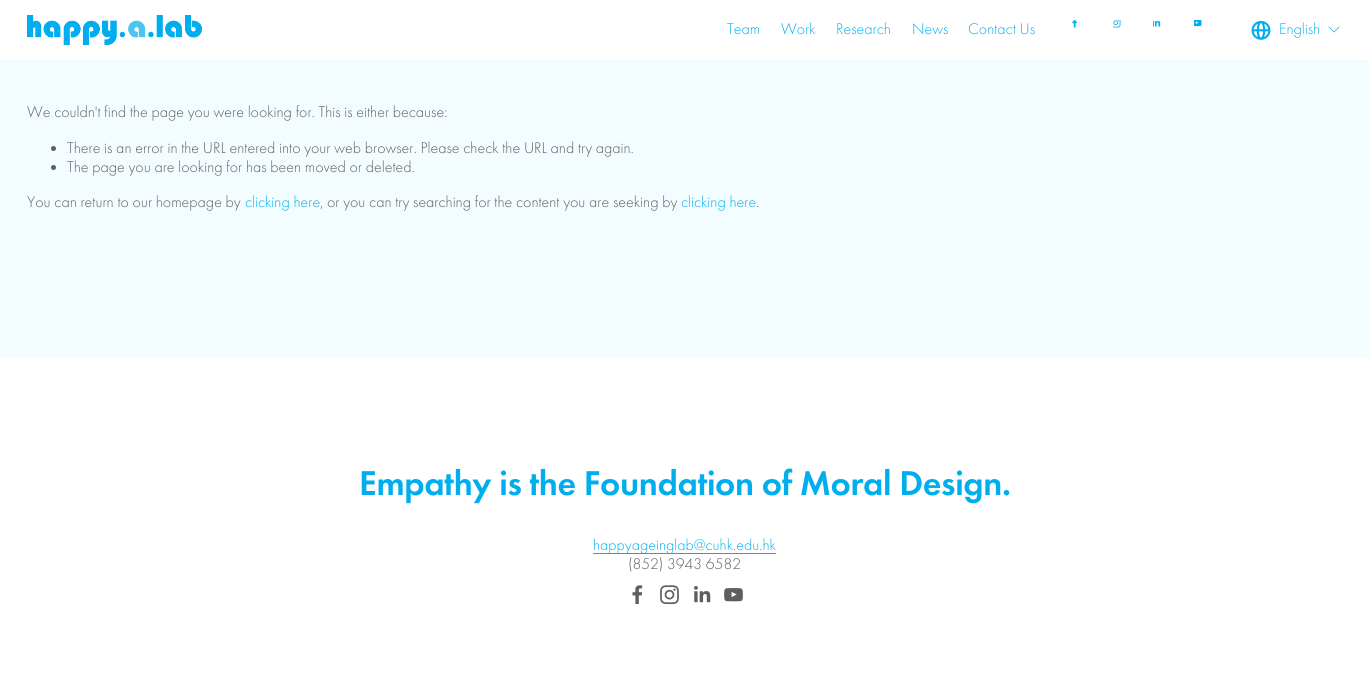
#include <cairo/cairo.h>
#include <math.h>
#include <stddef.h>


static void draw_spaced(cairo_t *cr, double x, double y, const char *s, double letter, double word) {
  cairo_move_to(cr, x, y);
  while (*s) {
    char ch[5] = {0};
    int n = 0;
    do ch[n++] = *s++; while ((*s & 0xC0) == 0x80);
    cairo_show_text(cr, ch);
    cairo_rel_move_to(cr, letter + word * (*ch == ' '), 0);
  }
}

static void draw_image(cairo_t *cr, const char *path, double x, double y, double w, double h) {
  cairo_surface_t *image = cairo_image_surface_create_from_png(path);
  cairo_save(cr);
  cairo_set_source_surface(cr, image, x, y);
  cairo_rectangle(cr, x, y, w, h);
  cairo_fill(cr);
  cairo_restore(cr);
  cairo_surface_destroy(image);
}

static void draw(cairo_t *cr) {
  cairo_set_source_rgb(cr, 243 / 255.0, 252 / 255.0, 1);
  cairo_paint(cr);
  cairo_set_source_rgb(cr, 1, 1, 1);
  cairo_rectangle(cr, 0, 0, 1369, 60);
  cairo_fill(cr);
  draw_image(cr, "images/1.png", 27, 15, 175, 31);
  draw_image(cr, "images/2.png", 1072, 20, 6, 8);
  draw_image(cr, "images/3.png", 1113, 20, 8, 8);
  draw_image(cr, "images/4.png", 1153, 20, 8, 7);
  draw_image(cr, "images/5.png", 1194, 20, 8, 7);
  draw_image(cr, "images/6.png", 1251, 20, 20, 20);
  cairo_new_path(cr);
  cairo_move_to(cr, 1339, 27);
  cairo_line_to(cr, 1334, 32);
  cairo_line_to(cr, 1329, 27);
  cairo_set_source_rgb(cr, 0, 174 / 255.0, 239 / 255.0);
  cairo_set_line_width(cr, 0.7);
  cairo_set_line_cap(cr, CAIRO_LINE_CAP_SQUARE);
  cairo_stroke(cr);
  cairo_set_source_rgb(cr, 94 / 255.0, 94 / 255.0, 94 / 255.0);
  cairo_arc(cr, 53.5, 148.5, 2.5, 0, 2 * M_PI);
  cairo_fill(cr);
  cairo_arc(cr, 53.5, 167.5, 2.5, 0, 2 * M_PI);
  cairo_fill(cr);
  cairo_set_source_rgb(cr, 1, 1, 1);
  cairo_rectangle(cr, 0, 358, 1369, 340);
  cairo_fill(cr);
  cairo_set_source_rgb(cr, 0, 174 / 255.0, 239 / 255.0);
  cairo_rectangle(cr, 593, 553, 183, 1);
  cairo_fill(cr);
  draw_image(cr, "images/7.png", 632, 585, 11, 20);
  draw_image(cr, "images/8.png", 660, 585, 19, 20);
  draw_image(cr, "images/9.png", 694, 586, 17, 17);
  draw_image(cr, "images/10.png", 724, 588, 19, 14);
  cairo_select_font_face(cr, "Futura PT Light", CAIRO_FONT_SLANT_NORMAL, CAIRO_FONT_WEIGHT_NORMAL);
  cairo_set_font_size(cr, 16);
  cairo_move_to(cr, 727, 34);
  cairo_show_text(cr, "Team");
  cairo_move_to(cr, 781, 34);
  cairo_show_text(cr, "Work");
  cairo_move_to(cr, 836, 34);
  cairo_show_text(cr, "Research");
  cairo_move_to(cr, 912, 34);
  cairo_show_text(cr, "News");
  cairo_move_to(cr, 968, 34);
  cairo_show_text(cr, "Contact Us");
  cairo_move_to(cr, 1279, 34);
  cairo_show_text(cr, "English");
  cairo_set_source_rgb(cr, 94 / 255.0, 94 / 255.0, 94 / 255.0);
  cairo_move_to(cr, 27, 117);
  cairo_show_text(cr, "We couldn't find the page you were looking for. This is either because:");
  cairo_move_to(cr, 67, 153);
  cairo_show_text(cr, "There is an error in the URL entered into your web browser. Please check the URL and try again.");
  cairo_move_to(cr, 67, 172);
  cairo_show_text(cr, "The page you are looking for has been moved or deleted.");
  cairo_move_to(cr, 27, 207);
  cairo_show_text(cr, "You can return to our homepage by");
  cairo_set_source_rgb(cr, 0, 174 / 255.0, 239 / 255.0);
  cairo_move_to(cr, 245, 207);
  cairo_show_text(cr, "clicking here");
  cairo_set_source_rgb(cr, 94 / 255.0, 94 / 255.0, 94 / 255.0);
  cairo_move_to(cr, 320, 207);
  cairo_show_text(cr, ", or you can try searching for the content you are seeking by");
  cairo_set_source_rgb(cr, 0, 174 / 255.0, 239 / 255.0);
  cairo_move_to(cr, 681, 207);
  cairo_show_text(cr, "clicking here");
  cairo_set_source_rgb(cr, 94 / 255.0, 94 / 255.0, 94 / 255.0);
  cairo_move_to(cr, 756, 207);
  cairo_show_text(cr, ".");
  cairo_select_font_face(cr, "Futura PT Medium", CAIRO_FONT_SLANT_NORMAL, CAIRO_FONT_WEIGHT_NORMAL);
  cairo_set_font_size(cr, 35.75);
  cairo_set_source_rgb(cr, 0, 174 / 255.0, 239 / 255.0);
  draw_spaced(cr, 359, 495, "Empathy is the Foundation of Moral Design.", -0.35, 0);
  cairo_select_font_face(cr, "Futura PT Light", CAIRO_FONT_SLANT_NORMAL, CAIRO_FONT_WEIGHT_NORMAL);
  cairo_set_font_size(cr, 16);
  cairo_move_to(cr, 593, 550);
  cairo_show_text(cr, "happyageinglab@cuhk.edu.hk");
  cairo_set_source_rgb(cr, 94 / 255.0, 94 / 255.0, 94 / 255.0);
  cairo_move_to(cr, 628, 569);
  cairo_show_text(cr, "(852) 3943 6582");
}

int main(void) {
  cairo_surface_t *surface = cairo_image_surface_create(CAIRO_FORMAT_RGB24, 1369, 698);
  cairo_t *cr = cairo_create(surface);
  cairo_font_options_t *options = cairo_font_options_create();
  cairo_font_options_set_hint_metrics(options, CAIRO_HINT_METRICS_OFF);
  cairo_font_options_set_hint_style(options, CAIRO_HINT_STYLE_NONE);
  cairo_set_font_options(cr, options);
  cairo_set_miter_limit(cr, 4);
  draw(cr);
  cairo_surface_write_to_png(surface, "out.png");
  cairo_font_options_destroy(options);
  cairo_destroy(cr);
  cairo_surface_destroy(surface);
  return 0;
}
